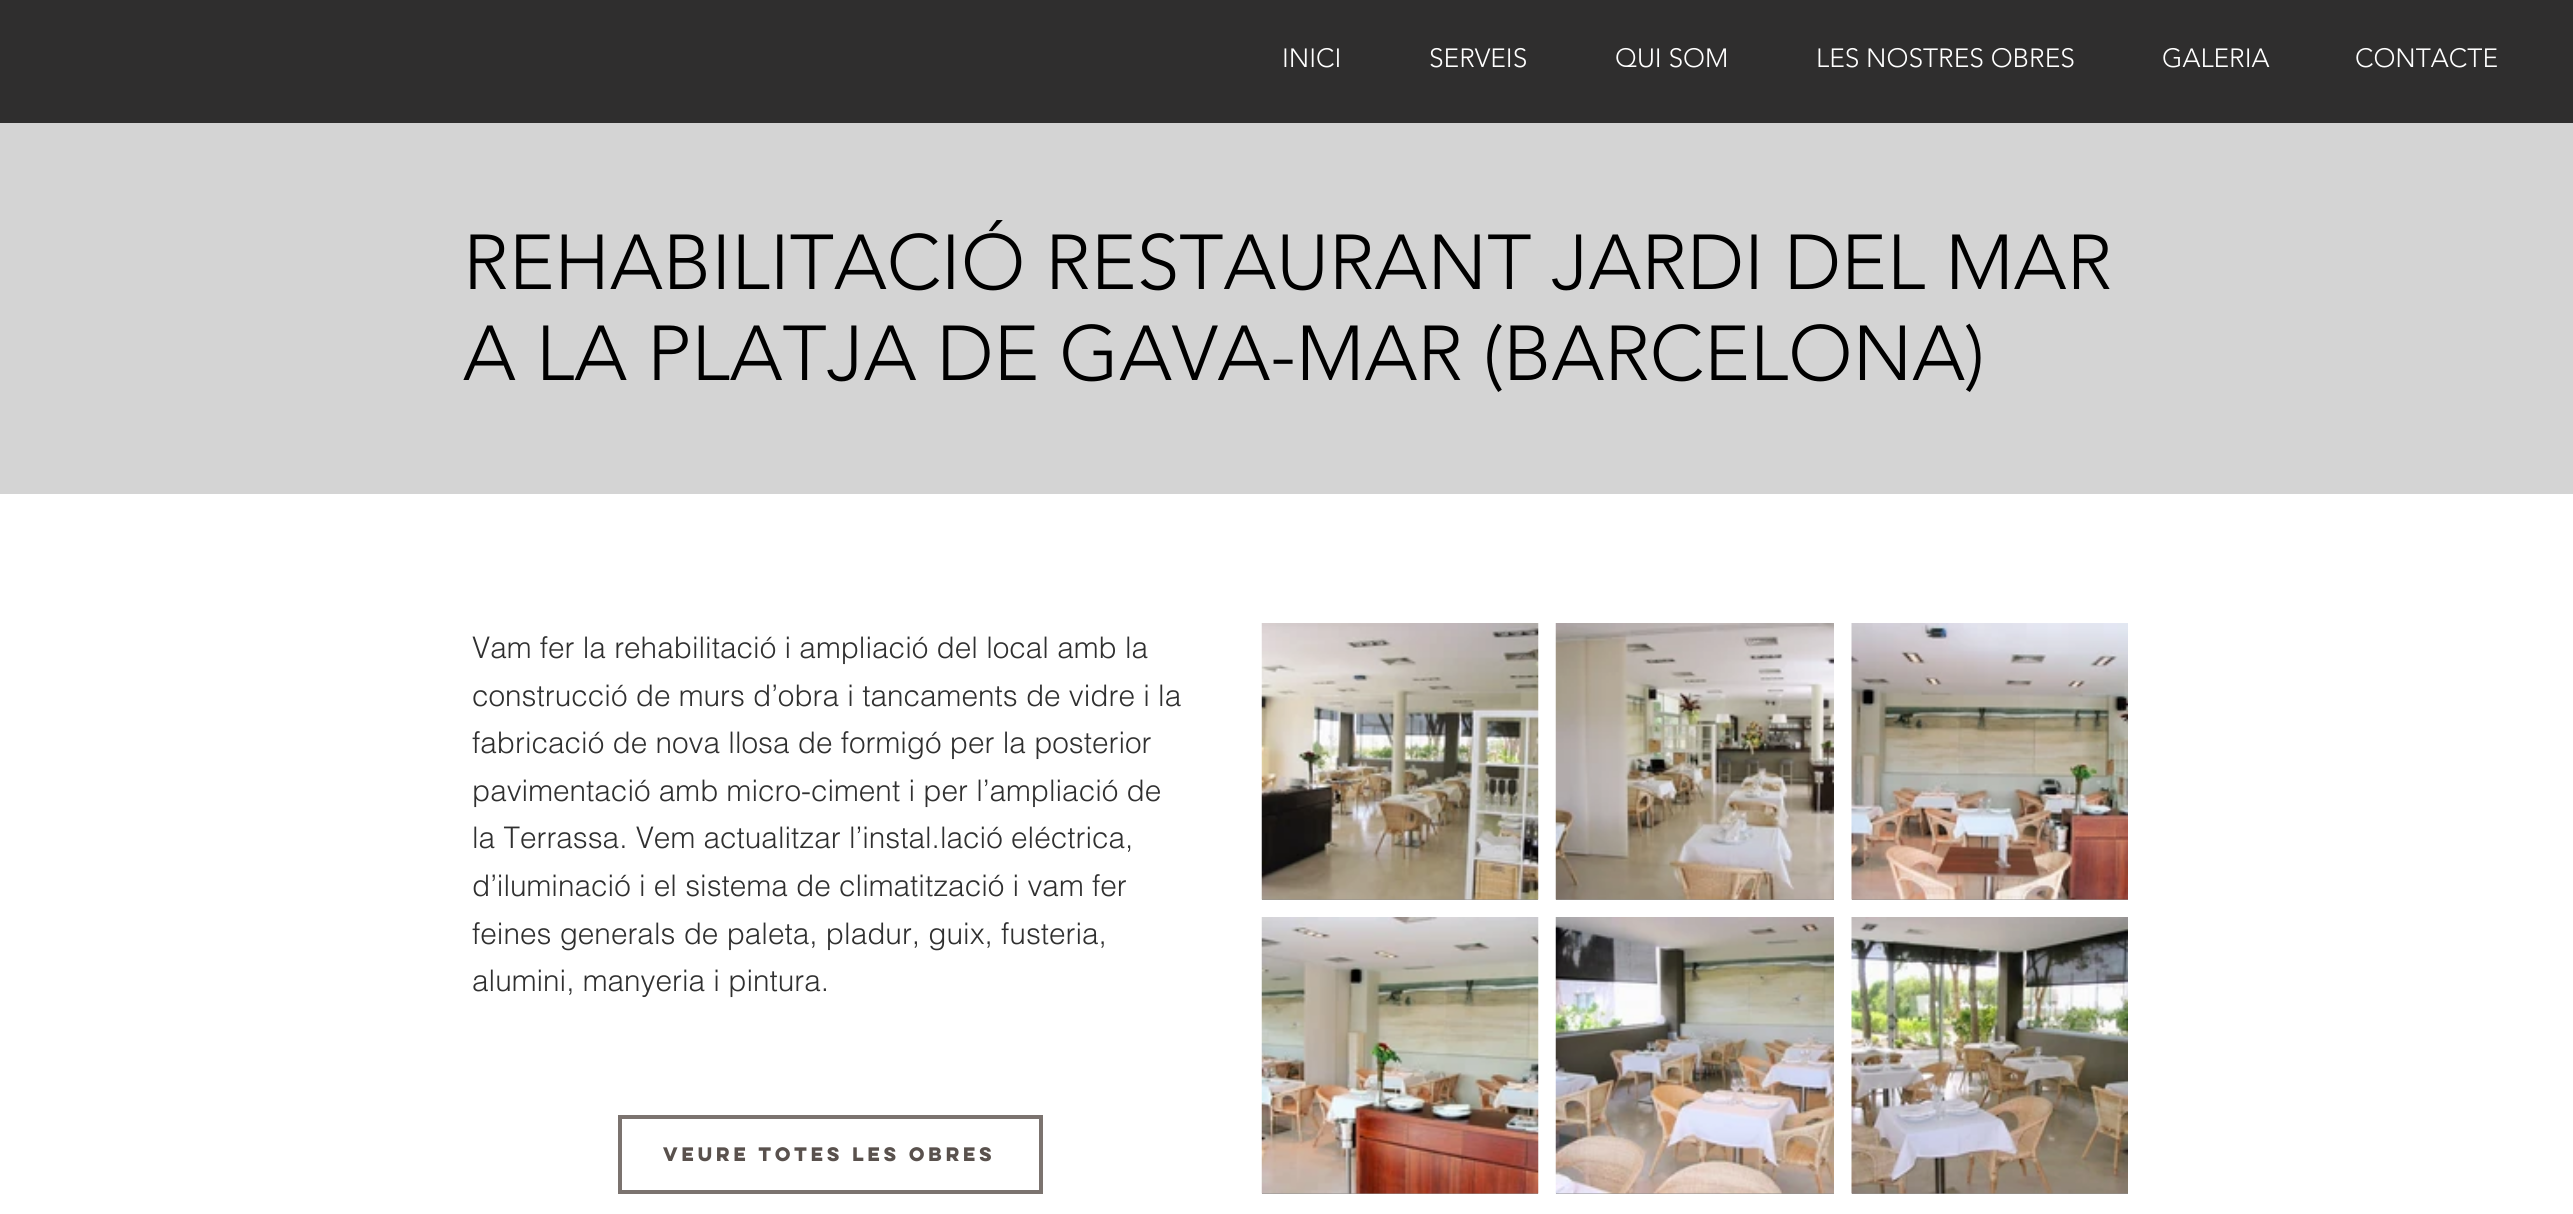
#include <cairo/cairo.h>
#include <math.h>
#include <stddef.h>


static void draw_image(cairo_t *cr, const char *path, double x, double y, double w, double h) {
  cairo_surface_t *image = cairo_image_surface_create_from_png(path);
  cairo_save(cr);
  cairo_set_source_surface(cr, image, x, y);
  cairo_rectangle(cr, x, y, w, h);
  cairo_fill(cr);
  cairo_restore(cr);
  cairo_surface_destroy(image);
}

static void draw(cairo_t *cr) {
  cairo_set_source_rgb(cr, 212 / 255.0, 212 / 255.0, 212 / 255.0);
  cairo_paint(cr);
  cairo_set_source_rgb(cr, 47 / 255.0, 46 / 255.0, 46 / 255.0);
  cairo_rectangle(cr, 0, 0, 2573, 123);
  cairo_fill(cr);
  cairo_set_source_rgb(cr, 1, 1, 1);
  cairo_rectangle(cr, 0, 494, 2573, 720);
  cairo_fill(cr);
  cairo_set_source_rgb(cr, 144 / 255.0, 144 / 255.0, 144 / 255.0);
  cairo_rectangle(cr, 1262, 899, 276, 1);
  cairo_fill(cr);
  draw_image(cr, "images/1.png", 1261, 623, 278, 277);
  cairo_rectangle(cr, 1556, 899, 278, 1);
  cairo_fill(cr);
  draw_image(cr, "images/2.png", 1555, 623, 279, 277);
  cairo_rectangle(cr, 1852, 899, 276, 1);
  cairo_fill(cr);
  draw_image(cr, "images/3.png", 1851, 623, 277, 277);
  cairo_rectangle(cr, 1262, 1193, 276, 1);
  cairo_fill(cr);
  draw_image(cr, "images/4.png", 1261, 917, 278, 277);
  cairo_rectangle(cr, 1556, 1193, 278, 1);
  cairo_fill(cr);
  draw_image(cr, "images/5.png", 1555, 917, 279, 277);
  cairo_rectangle(cr, 1852, 1193, 276, 1);
  cairo_fill(cr);
  draw_image(cr, "images/6.png", 1851, 917, 277, 277);
  cairo_rectangle(cr, 620, 1117, 421, 75);
  cairo_set_source_rgb(cr, 123 / 255.0, 115 / 255.0, 111 / 255.0);
  cairo_set_line_width(cr, 4);
  cairo_stroke(cr);
  cairo_select_font_face(cr, "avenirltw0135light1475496 Light", CAIRO_FONT_SLANT_NORMAL, CAIRO_FONT_WEIGHT_NORMAL);
  cairo_set_font_size(cr, 26.25);
  cairo_set_source_rgb(cr, 1, 1, 1);
  cairo_move_to(cr, 1282, 67);
  cairo_show_text(cr, "INICI");
  cairo_move_to(cr, 1429, 67);
  cairo_show_text(cr, "SERVEIS");
  cairo_move_to(cr, 1615, 67);
  cairo_show_text(cr, "QUI SOM");
  cairo_move_to(cr, 1816, 67);
  cairo_show_text(cr, "LES NOSTRES OBRES");
  cairo_move_to(cr, 2162, 67);
  cairo_show_text(cr, "GALERIA");
  cairo_move_to(cr, 2355, 67);
  cairo_show_text(cr, "CONTACTE");
  cairo_set_font_size(cr, 77);
  cairo_set_source_rgb(cr, 0, 0, 0);
  cairo_move_to(cr, 463, 289);
  cairo_show_text(cr, "REHABILITACIÓ RESTAURANT JARDI DEL MAR");
  cairo_move_to(cr, 463, 380);
  cairo_show_text(cr, "A LA PLATJA DE GAVA-MAR (BARCELONA)");
  cairo_select_font_face(cr, "helvetica Light", CAIRO_FONT_SLANT_NORMAL, CAIRO_FONT_WEIGHT_NORMAL);
  cairo_set_font_size(cr, 29.75);
  cairo_set_source_rgb(cr, 48 / 255.0, 48 / 255.0, 48 / 255.0);
  cairo_move_to(cr, 472, 658);
  cairo_show_text(cr, "Vam fer la rehabilitació i ampliació del local amb la");
  cairo_move_to(cr, 472, 706);
  cairo_show_text(cr, "construcció de murs d’obra i tancaments de vidre i la");
  cairo_move_to(cr, 472, 753);
  cairo_show_text(cr, "fabricació de nova llosa de formigó per la posterior");
  cairo_move_to(cr, 472, 801);
  cairo_show_text(cr, "pavimentació amb micro-ciment i per l’ampliació de");
  cairo_move_to(cr, 472, 848);
  cairo_show_text(cr, "la Terrassa. Vem actualitzar l’instal.lació eléctrica,");
  cairo_move_to(cr, 472, 896);
  cairo_show_text(cr, "d’iluminació i el sistema de climatització i vam fer");
  cairo_move_to(cr, 472, 944);
  cairo_show_text(cr, "feines generals de paleta, pladur, guix, fusteria,");
  cairo_move_to(cr, 472, 991);
  cairo_show_text(cr, "alumini, manyeria i pintura.");
  cairo_select_font_face(cr, "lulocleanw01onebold", CAIRO_FONT_SLANT_NORMAL, CAIRO_FONT_WEIGHT_BOLD);
  cairo_set_font_size(cr, 17.5);
  cairo_set_source_rgb(cr, 89 / 255.0, 81 / 255.0, 77 / 255.0);
  cairo_move_to(cr, 663, 1161);
  cairo_show_text(cr, "VEURE TOTES LES OBRES");
}

int main(void) {
  cairo_surface_t *surface = cairo_image_surface_create(CAIRO_FORMAT_RGB24, 2573, 1214);
  cairo_t *cr = cairo_create(surface);
  cairo_font_options_t *options = cairo_font_options_create();
  cairo_font_options_set_hint_metrics(options, CAIRO_HINT_METRICS_OFF);
  cairo_font_options_set_hint_style(options, CAIRO_HINT_STYLE_NONE);
  cairo_set_font_options(cr, options);
  cairo_set_miter_limit(cr, 4);
  draw(cr);
  cairo_surface_write_to_png(surface, "out.png");
  cairo_font_options_destroy(options);
  cairo_destroy(cr);
  cairo_surface_destroy(surface);
  return 0;
}
